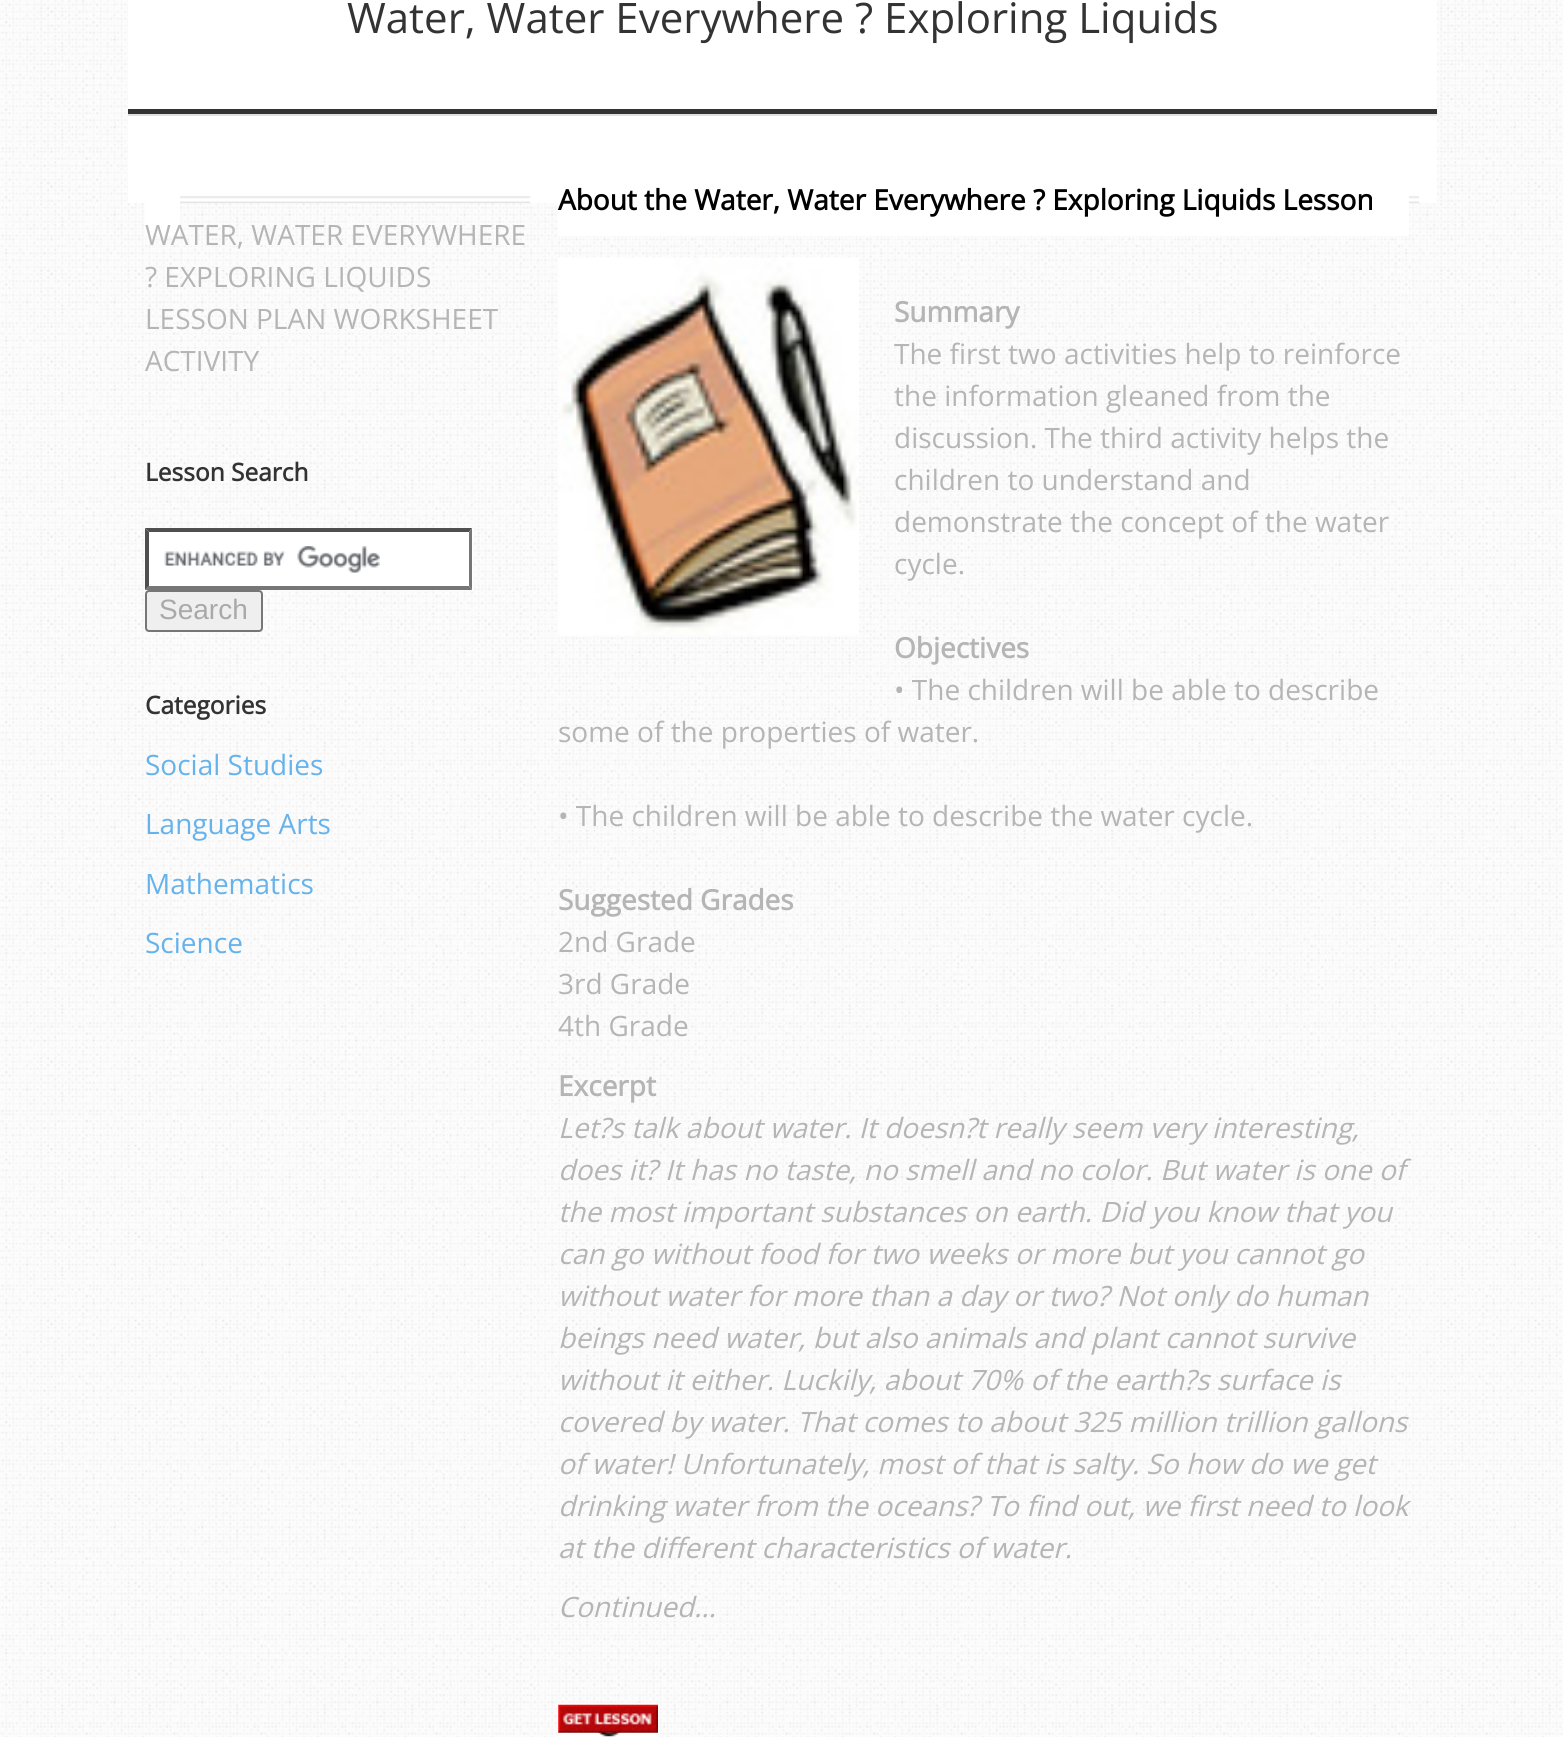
#include <cairo/cairo.h>
#include <math.h>
#include <stddef.h>


static void rounded_rect(cairo_t *cr, double x, double y, double w, double h, double r) {
  cairo_new_sub_path(cr);
  cairo_arc(cr, x + w - r, y + h - r, r, 0, M_PI / 2);
  cairo_arc(cr, x + r, y + h - r, r, M_PI / 2, M_PI);
  cairo_arc(cr, x + r, y + r, r, M_PI, 1.5 * M_PI);
  cairo_arc(cr, x + w - r, y + r, r, 1.5 * M_PI, 2 * M_PI);
  cairo_close_path(cr);
}

static void draw_image(cairo_t *cr, const char *path, double x, double y, double w, double h) {
  cairo_surface_t *image = cairo_image_surface_create_from_png(path);
  cairo_save(cr);
  cairo_set_source_surface(cr, image, x, y);
  cairo_rectangle(cr, x, y, w, h);
  cairo_fill(cr);
  cairo_restore(cr);
  cairo_surface_destroy(image);
}

static void draw(cairo_t *cr) {
  cairo_set_source_rgb(cr, 1, 1, 1);
  cairo_paint(cr);
  draw_image(cr, "images/1.png", 0, 0, 1563, 1737);
  cairo_set_source_rgb(cr, 224 / 255.0, 224 / 255.0, 224 / 255.0);
  cairo_rectangle(cr, 128, 114, 1309, 2);
  cairo_fill(cr);
  cairo_set_source_rgb(cr, 1, 1, 1);
  cairo_rectangle(cr, 128, 0, 1309, 109);
  cairo_fill(cr);
  cairo_set_source_rgb(cr, 51 / 255.0, 51 / 255.0, 51 / 255.0);
  cairo_rectangle(cr, 128, 109, 1309, 5);
  cairo_fill(cr);
  cairo_set_source_rgb(cr, 1, 1, 1);
  cairo_rectangle(cr, 128, 116, 1309, 87);
  cairo_fill(cr);
  draw_image(cr, "images/2.png", 180, 196, 351, 8);
  cairo_rectangle(cr, 145, 203, 35, 33);
  cairo_fill(cr);
  cairo_rectangle(cr, 145, 529, 328, 61);
  cairo_fill(cr);
  draw_image(cr, "images/3.png", 164, 546, 216, 27);
  cairo_set_source_rgb(cr, 79 / 255.0, 79 / 255.0, 79 / 255.0);
  cairo_new_path(cr);
  cairo_move_to(cr, 145, 528);
  cairo_line_to(cr, 472, 528);
  cairo_line_to(cr, 469, 532);
  cairo_line_to(cr, 149, 532);
  cairo_close_path(cr);
  cairo_fill(cr);
  cairo_set_source_rgb(cr, 118 / 255.0, 118 / 255.0, 118 / 255.0);
  cairo_new_path(cr);
  cairo_move_to(cr, 472, 528);
  cairo_line_to(cr, 472, 590);
  cairo_line_to(cr, 469, 586);
  cairo_line_to(cr, 469, 532);
  cairo_close_path(cr);
  cairo_fill(cr);
  cairo_new_path(cr);
  cairo_move_to(cr, 472, 590);
  cairo_line_to(cr, 145, 590);
  cairo_line_to(cr, 149, 586);
  cairo_line_to(cr, 469, 586);
  cairo_close_path(cr);
  cairo_fill(cr);
  cairo_set_source_rgb(cr, 79 / 255.0, 79 / 255.0, 79 / 255.0);
  cairo_new_path(cr);
  cairo_move_to(cr, 145, 590);
  cairo_line_to(cr, 145, 528);
  cairo_line_to(cr, 149, 532);
  cairo_line_to(cr, 149, 586);
  cairo_close_path(cr);
  cairo_fill(cr);
  cairo_set_source_rgb(cr, 239 / 255.0, 239 / 255.0, 239 / 255.0);
  rounded_rect(cr, 146, 591, 116, 40, 3);
  cairo_fill_preserve(cr);
  cairo_set_source_rgb(cr, 118 / 255.0, 118 / 255.0, 118 / 255.0);
  cairo_stroke(cr);
  draw_image(cr, "images/4.png", 1409, 196, 11, 8);
  cairo_set_source_rgb(cr, 1, 1, 1);
  cairo_rectangle(cr, 558, 203, 851, 33);
  cairo_fill(cr);
  draw_image(cr, "images/5.png", 558, 257, 301, 379);
  cairo_rectangle(cr, 558, 1703, 100, 34);
  cairo_fill(cr);
  draw_image(cr, "images/7.png", 595, 1708, 28, 29);
  draw_image(cr, "images/6.png", 558, 1704, 100, 29);
  cairo_select_font_face(cr, "Open Sans", CAIRO_FONT_SLANT_NORMAL, CAIRO_FONT_WEIGHT_NORMAL);
  cairo_set_font_size(cr, 42);
  cairo_set_source_rgb(cr, 51 / 255.0, 51 / 255.0, 51 / 255.0);
  cairo_move_to(cr, 347, 33);
  cairo_show_text(cr, "Water, Water Everywhere ? Exploring Liquids");
  cairo_set_font_size(cr, 28);
  cairo_set_source_rgb(cr, 181 / 255.0, 181 / 255.0, 181 / 255.0);
  cairo_move_to(cr, 145, 245);
  cairo_show_text(cr, "WATER, WATER EVERYWHERE");
  cairo_move_to(cr, 145, 287);
  cairo_show_text(cr, "? EXPLORING LIQUIDS");
  cairo_move_to(cr, 145, 329);
  cairo_show_text(cr, "LESSON PLAN WORKSHEET");
  cairo_move_to(cr, 145, 371);
  cairo_show_text(cr, "ACTIVITY");
  cairo_select_font_face(cr, "Open Sans", CAIRO_FONT_SLANT_NORMAL, CAIRO_FONT_WEIGHT_BOLD);
  cairo_set_font_size(cr, 24.5);
  cairo_set_source_rgb(cr, 51 / 255.0, 51 / 255.0, 51 / 255.0);
  cairo_move_to(cr, 145, 481);
  cairo_show_text(cr, "Lesson Search");
  cairo_select_font_face(cr, "Liberation Sans", CAIRO_FONT_SLANT_NORMAL, CAIRO_FONT_WEIGHT_NORMAL);
  cairo_set_font_size(cr, 28);
  cairo_set_source_rgb(cr, 169 / 255.0, 169 / 255.0, 169 / 255.0);
  cairo_move_to(cr, 159, 619);
  cairo_show_text(cr, "Search");
  cairo_select_font_face(cr, "Open Sans", CAIRO_FONT_SLANT_NORMAL, CAIRO_FONT_WEIGHT_BOLD);
  cairo_set_font_size(cr, 24.5);
  cairo_set_source_rgb(cr, 51 / 255.0, 51 / 255.0, 51 / 255.0);
  cairo_move_to(cr, 145, 714);
  cairo_show_text(cr, "Categories");
  cairo_select_font_face(cr, "Open Sans", CAIRO_FONT_SLANT_NORMAL, CAIRO_FONT_WEIGHT_NORMAL);
  cairo_set_font_size(cr, 28);
  cairo_set_source_rgb(cr, 102 / 255.0, 179 / 255.0, 236 / 255.0);
  cairo_move_to(cr, 145, 775);
  cairo_show_text(cr, "Social Studies");
  cairo_move_to(cr, 145, 834);
  cairo_show_text(cr, "Language Arts");
  cairo_move_to(cr, 145, 894);
  cairo_show_text(cr, "Mathematics");
  cairo_move_to(cr, 145, 953);
  cairo_show_text(cr, "Science");
  cairo_select_font_face(cr, "Open Sans", CAIRO_FONT_SLANT_NORMAL, CAIRO_FONT_WEIGHT_BOLD);
  cairo_set_source_rgb(cr, 0, 0, 0);
  cairo_move_to(cr, 558, 210);
  cairo_show_text(cr, "About the Water, Water Everywhere ? Exploring Liquids Lesson");
  cairo_set_source_rgb(cr, 181 / 255.0, 181 / 255.0, 181 / 255.0);
  cairo_move_to(cr, 894, 322);
  cairo_show_text(cr, "Summary");
  cairo_select_font_face(cr, "Open Sans", CAIRO_FONT_SLANT_NORMAL, CAIRO_FONT_WEIGHT_NORMAL);
  cairo_move_to(cr, 894, 364);
  cairo_show_text(cr, "The first two activities help to reinforce");
  cairo_move_to(cr, 894, 406);
  cairo_show_text(cr, "the information gleaned from the");
  cairo_move_to(cr, 894, 448);
  cairo_show_text(cr, "discussion. The third activity helps the");
  cairo_move_to(cr, 894, 490);
  cairo_show_text(cr, "children to understand and");
  cairo_move_to(cr, 894, 532);
  cairo_show_text(cr, "demonstrate the concept of the water");
  cairo_move_to(cr, 894, 574);
  cairo_show_text(cr, "cycle.");
  cairo_select_font_face(cr, "Open Sans", CAIRO_FONT_SLANT_NORMAL, CAIRO_FONT_WEIGHT_BOLD);
  cairo_move_to(cr, 894, 658);
  cairo_show_text(cr, "Objectives");
  cairo_select_font_face(cr, "Open Sans", CAIRO_FONT_SLANT_NORMAL, CAIRO_FONT_WEIGHT_NORMAL);
  cairo_move_to(cr, 894, 700);
  cairo_show_text(cr, "• The children will be able to describe");
  cairo_move_to(cr, 558, 742);
  cairo_show_text(cr, "some of the properties of water.");
  cairo_move_to(cr, 558, 826);
  cairo_show_text(cr, "• The children will be able to describe the water cycle.");
  cairo_select_font_face(cr, "Open Sans", CAIRO_FONT_SLANT_NORMAL, CAIRO_FONT_WEIGHT_BOLD);
  cairo_move_to(cr, 558, 910);
  cairo_show_text(cr, "Suggested Grades");
  cairo_select_font_face(cr, "Open Sans", CAIRO_FONT_SLANT_NORMAL, CAIRO_FONT_WEIGHT_NORMAL);
  cairo_move_to(cr, 558, 952);
  cairo_show_text(cr, "2nd Grade");
  cairo_move_to(cr, 558, 994);
  cairo_show_text(cr, "3rd Grade");
  cairo_move_to(cr, 558, 1036);
  cairo_show_text(cr, "4th Grade");
  cairo_select_font_face(cr, "Open Sans", CAIRO_FONT_SLANT_NORMAL, CAIRO_FONT_WEIGHT_BOLD);
  cairo_move_to(cr, 558, 1096);
  cairo_show_text(cr, "Excerpt");
  cairo_select_font_face(cr, "Open Sans", CAIRO_FONT_SLANT_ITALIC, CAIRO_FONT_WEIGHT_NORMAL);
  cairo_move_to(cr, 558, 1138);
  cairo_show_text(cr, "Let?s talk about water. It doesn?t really seem very interesting,");
  cairo_move_to(cr, 558, 1180);
  cairo_show_text(cr, "does it? It has no taste, no smell and no color. But water is one of");
  cairo_move_to(cr, 558, 1222);
  cairo_show_text(cr, "the most important substances on earth. Did you know that you");
  cairo_move_to(cr, 558, 1264);
  cairo_show_text(cr, "can go without food for two weeks or more but you cannot go");
  cairo_move_to(cr, 558, 1306);
  cairo_show_text(cr, "without water for more than a day or two? Not only do human");
  cairo_move_to(cr, 558, 1348);
  cairo_show_text(cr, "beings need water, but also animals and plant cannot survive");
  cairo_move_to(cr, 558, 1390);
  cairo_show_text(cr, "without it either. Luckily, about 70% of the earth?s surface is");
  cairo_move_to(cr, 558, 1432);
  cairo_show_text(cr, "covered by water. That comes to about 325 million trillion gallons");
  cairo_move_to(cr, 558, 1474);
  cairo_show_text(cr, "of water! Unfortunately, most of that is salty. So how do we get");
  cairo_move_to(cr, 558, 1516);
  cairo_show_text(cr, "drinking water from the oceans? To find out, we first need to look");
  cairo_move_to(cr, 558, 1558);
  cairo_show_text(cr, "at the different characteristics of water.");
  cairo_move_to(cr, 558, 1617);
  cairo_show_text(cr, "Continued...");
}

int main(void) {
  cairo_surface_t *surface = cairo_image_surface_create(CAIRO_FORMAT_RGB24, 1563, 1737);
  cairo_t *cr = cairo_create(surface);
  cairo_font_options_t *options = cairo_font_options_create();
  cairo_font_options_set_hint_metrics(options, CAIRO_HINT_METRICS_OFF);
  cairo_font_options_set_hint_style(options, CAIRO_HINT_STYLE_NONE);
  cairo_set_font_options(cr, options);
  cairo_set_miter_limit(cr, 4);
  draw(cr);
  cairo_surface_write_to_png(surface, "out.png");
  cairo_font_options_destroy(options);
  cairo_destroy(cr);
  cairo_surface_destroy(surface);
  return 0;
}
